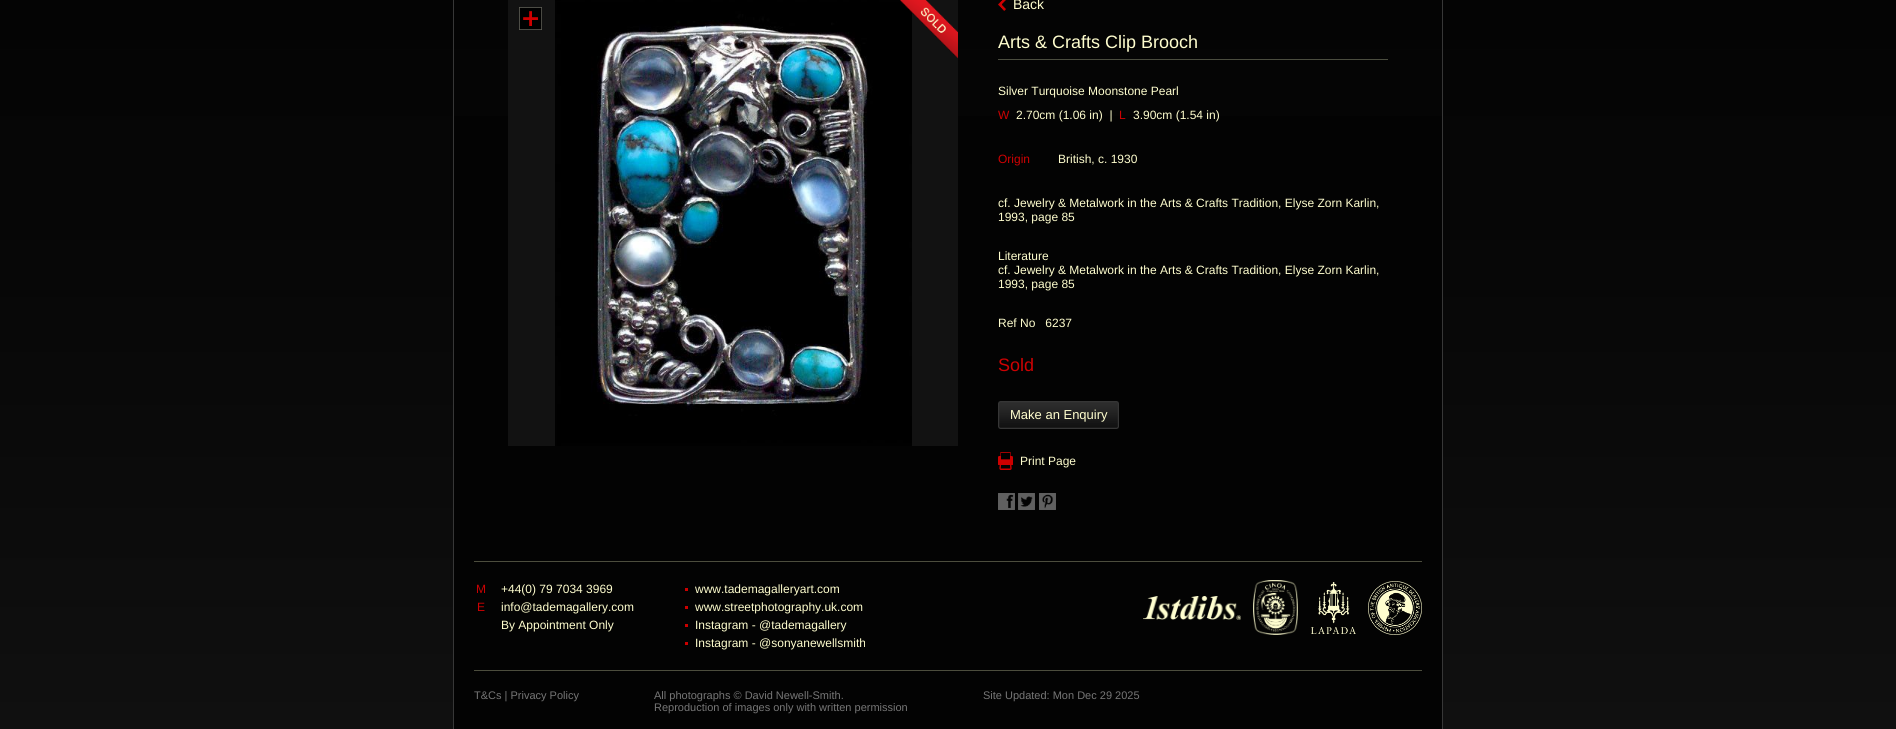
#include <cairo/cairo.h>
#include <math.h>
#include <stddef.h>


static void draw_image(cairo_t *cr, const char *path, double x, double y, double w, double h) {
  cairo_surface_t *image = cairo_image_surface_create_from_png(path);
  cairo_save(cr);
  cairo_set_source_surface(cr, image, x, y);
  cairo_rectangle(cr, x, y, w, h);
  cairo_fill(cr);
  cairo_restore(cr);
  cairo_surface_destroy(image);
}

static void draw(cairo_t *cr) {
  cairo_set_source_rgb(cr, 1, 1, 1);
  cairo_paint(cr);
  draw_image(cr, "images/1.png", 0, 0, 1896, 729);
  cairo_set_source_rgb(cr, 3 / 255.0, 3 / 255.0, 3 / 255.0);
  cairo_rectangle(cr, 454, 116, 988, 613);
  cairo_fill(cr);
  cairo_rectangle(cr, 453.5, -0.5, 989, 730);
  cairo_set_source_rgb(cr, 55 / 255.0, 55 / 255.0, 55 / 255.0);
  cairo_set_line_width(cr, 1);
  cairo_stroke(cr);
  cairo_set_source_rgb(cr, 18 / 255.0, 18 / 255.0, 18 / 255.0);
  cairo_rectangle(cr, 508, 0, 450, 446);
  cairo_fill(cr);
  draw_image(cr, "images/2.png", 519, 7, 23, 23);
  draw_image(cr, "images/3.png", 555, 0, 357, 446);
  draw_image(cr, "images/4.png", 900, 0, 58, 59);
  draw_image(cr, "images/5.png", 998, 0, 8, 11);
  cairo_set_source_rgb(cr, 75 / 255.0, 77 / 255.0, 63 / 255.0);
  cairo_rectangle(cr, 998, 59, 390, 1);
  cairo_fill(cr);
  draw_image(cr, "images/6.png", 998, 401, 121, 28);
  draw_image(cr, "images/7.png", 998, 452, 15, 18);
  draw_image(cr, "images/8.png", 998, 493, 17, 17);
  draw_image(cr, "images/9.png", 1018, 493, 17, 17);
  draw_image(cr, "images/10.png", 1039, 493, 17, 17);
  cairo_set_source_rgb(cr, 76 / 255.0, 77 / 255.0, 61 / 255.0);
  cairo_rectangle(cr, 474, 561, 948, 1);
  cairo_fill(cr);
  cairo_set_source_rgb(cr, 204 / 255.0, 0, 0);
  cairo_rectangle(cr, 685, 588, 3, 3);
  cairo_fill(cr);
  cairo_rectangle(cr, 685, 606, 3, 3);
  cairo_fill(cr);
  cairo_rectangle(cr, 685, 624, 3, 3);
  cairo_fill(cr);
  cairo_rectangle(cr, 685, 642, 3, 3);
  cairo_fill(cr);
  draw_image(cr, "images/11.png", 1143, 596, 98, 24);
  draw_image(cr, "images/12.png", 1253, 580, 45, 55);
  draw_image(cr, "images/13.png", 1311, 582, 45, 52);
  draw_image(cr, "images/14.png", 1368, 581, 54, 54);
  cairo_set_source_rgb(cr, 76 / 255.0, 77 / 255.0, 61 / 255.0);
  cairo_rectangle(cr, 474, 670, 948, 1);
  cairo_fill(cr);
  cairo_select_font_face(cr, "Liberation Sans", CAIRO_FONT_SLANT_NORMAL, CAIRO_FONT_WEIGHT_NORMAL);
  cairo_set_font_size(cr, 14);
  cairo_set_source_rgb(cr, 1, 254 / 255.0, 206 / 255.0);
  cairo_move_to(cr, 1013, 9);
  cairo_show_text(cr, "Back");
  cairo_set_font_size(cr, 18);
  cairo_move_to(cr, 998, 48);
  cairo_show_text(cr, "Arts & Crafts Clip Brooch");
  cairo_set_font_size(cr, 12);
  cairo_move_to(cr, 998, 95);
  cairo_show_text(cr, "Silver Turquoise Moonstone Pearl");
  cairo_set_source_rgb(cr, 205 / 255.0, 1 / 255.0, 2 / 255.0);
  cairo_move_to(cr, 998, 119);
  cairo_show_text(cr, "W");
  cairo_set_source_rgb(cr, 1, 254 / 255.0, 206 / 255.0);
  cairo_move_to(cr, 1016, 119);
  cairo_show_text(cr, "2.70cm (1.06 in)  |");
  cairo_set_source_rgb(cr, 205 / 255.0, 1 / 255.0, 2 / 255.0);
  cairo_move_to(cr, 1119, 119);
  cairo_show_text(cr, "L");
  cairo_set_source_rgb(cr, 1, 254 / 255.0, 206 / 255.0);
  cairo_move_to(cr, 1133, 119);
  cairo_show_text(cr, "3.90cm (1.54 in)");
  cairo_set_source_rgb(cr, 205 / 255.0, 1 / 255.0, 2 / 255.0);
  cairo_move_to(cr, 998, 163);
  cairo_show_text(cr, "Origin");
  cairo_set_source_rgb(cr, 1, 254 / 255.0, 206 / 255.0);
  cairo_move_to(cr, 1058, 163);
  cairo_show_text(cr, "British, c. 1930");
  cairo_move_to(cr, 998, 207);
  cairo_show_text(cr, "cf. Jewelry & Metalwork in the Arts & Crafts Tradition, Elyse Zorn Karlin,");
  cairo_move_to(cr, 998, 221);
  cairo_show_text(cr, "1993, page 85");
  cairo_move_to(cr, 998, 260);
  cairo_show_text(cr, "Literature");
  cairo_move_to(cr, 998, 274);
  cairo_show_text(cr, "cf. Jewelry & Metalwork in the Arts & Crafts Tradition, Elyse Zorn Karlin,");
  cairo_move_to(cr, 998, 288);
  cairo_show_text(cr, "1993, page 85");
  cairo_move_to(cr, 998, 327);
  cairo_show_text(cr, "Ref No   6237");
  cairo_set_font_size(cr, 18);
  cairo_set_source_rgb(cr, 205 / 255.0, 1 / 255.0, 2 / 255.0);
  cairo_move_to(cr, 998, 371);
  cairo_show_text(cr, "Sold");
  cairo_set_font_size(cr, 13);
  cairo_set_source_rgb(cr, 1, 254 / 255.0, 206 / 255.0);
  cairo_move_to(cr, 1010, 419);
  cairo_show_text(cr, "Make an Enquiry");
  cairo_set_font_size(cr, 12);
  cairo_move_to(cr, 1020, 465);
  cairo_show_text(cr, "Print Page");
  cairo_set_source_rgb(cr, 205 / 255.0, 1 / 255.0, 2 / 255.0);
  cairo_move_to(cr, 476, 593);
  cairo_show_text(cr, "M");
  cairo_set_source_rgb(cr, 1, 254 / 255.0, 206 / 255.0);
  cairo_move_to(cr, 501, 593);
  cairo_show_text(cr, "+44(0) 79 7034 3969");
  cairo_set_source_rgb(cr, 205 / 255.0, 1 / 255.0, 2 / 255.0);
  cairo_move_to(cr, 477, 611);
  cairo_show_text(cr, "E");
  cairo_set_source_rgb(cr, 1, 254 / 255.0, 206 / 255.0);
  cairo_move_to(cr, 501, 611);
  cairo_show_text(cr, "info@tademagallery.com");
  cairo_move_to(cr, 501, 629);
  cairo_show_text(cr, "By Appointment Only");
  cairo_move_to(cr, 695, 593);
  cairo_show_text(cr, "www.tademagalleryart.com");
  cairo_move_to(cr, 695, 611);
  cairo_show_text(cr, "www.streetphotography.uk.com");
  cairo_move_to(cr, 695, 629);
  cairo_show_text(cr, "Instagram - @tademagallery");
  cairo_move_to(cr, 695, 647);
  cairo_show_text(cr, "Instagram - @sonyanewellsmith");
  cairo_set_font_size(cr, 11);
  cairo_set_source_rgb(cr, 118 / 255.0, 118 / 255.0, 118 / 255.0);
  cairo_move_to(cr, 474, 699);
  cairo_show_text(cr, "T&Cs | Privacy Policy");
  cairo_move_to(cr, 654, 699);
  cairo_show_text(cr, "All photographs © David Newell-Smith.");
  cairo_move_to(cr, 654, 711);
  cairo_show_text(cr, "Reproduction of images only with written permission");
  cairo_move_to(cr, 983, 699);
  cairo_show_text(cr, "Site Updated: Mon Dec 29 2025");
}

int main(void) {
  cairo_surface_t *surface = cairo_image_surface_create(CAIRO_FORMAT_RGB24, 1896, 729);
  cairo_t *cr = cairo_create(surface);
  cairo_font_options_t *options = cairo_font_options_create();
  cairo_font_options_set_hint_metrics(options, CAIRO_HINT_METRICS_OFF);
  cairo_font_options_set_hint_style(options, CAIRO_HINT_STYLE_NONE);
  cairo_set_font_options(cr, options);
  cairo_set_miter_limit(cr, 4);
  draw(cr);
  cairo_surface_write_to_png(surface, "out.png");
  cairo_font_options_destroy(options);
  cairo_destroy(cr);
  cairo_surface_destroy(surface);
  return 0;
}
